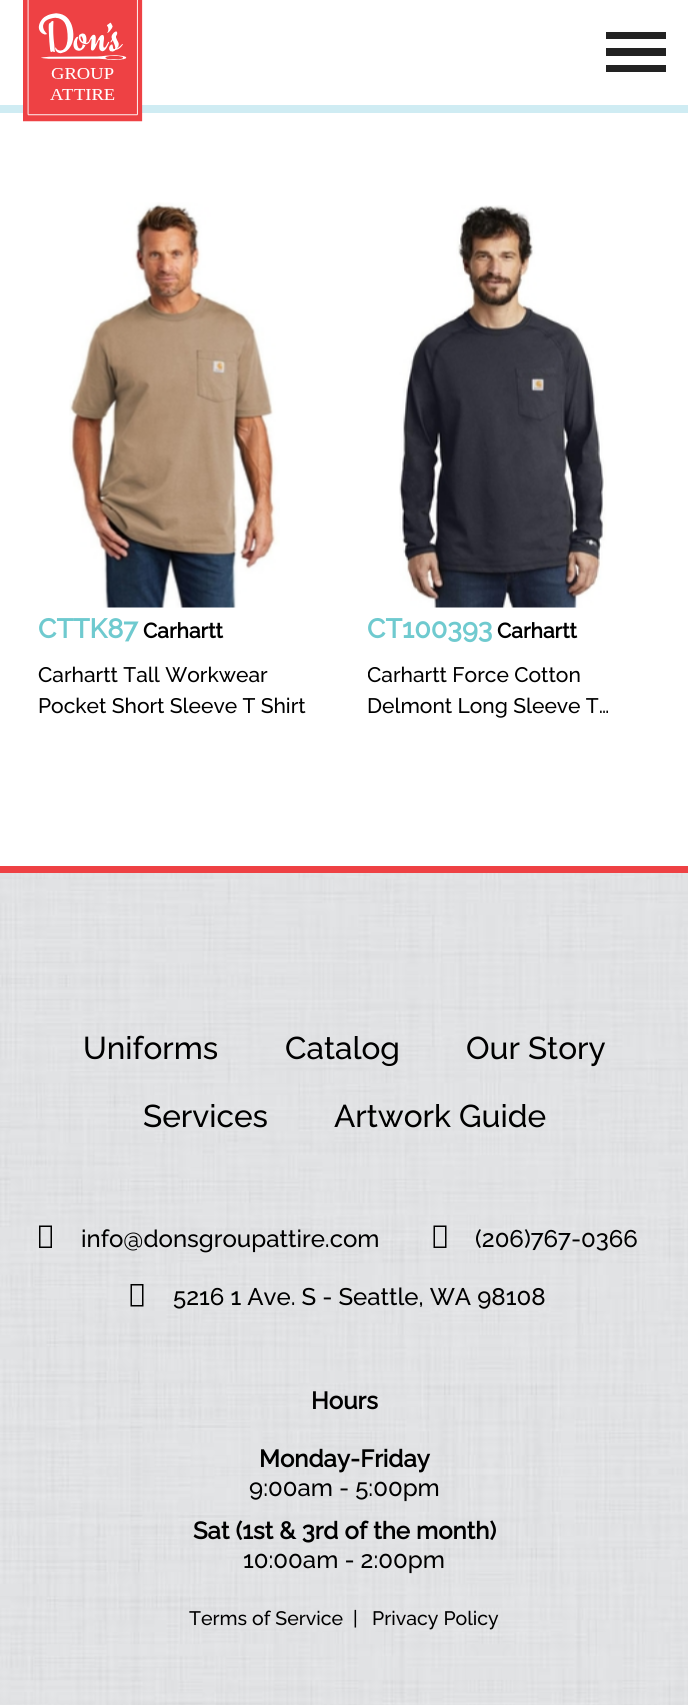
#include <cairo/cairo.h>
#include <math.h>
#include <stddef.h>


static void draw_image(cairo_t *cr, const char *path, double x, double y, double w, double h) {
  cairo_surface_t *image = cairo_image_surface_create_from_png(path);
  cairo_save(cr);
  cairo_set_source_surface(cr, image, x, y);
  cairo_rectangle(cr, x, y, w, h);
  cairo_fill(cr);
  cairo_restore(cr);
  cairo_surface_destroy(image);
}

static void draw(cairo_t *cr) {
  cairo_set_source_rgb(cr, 1, 1, 1);
  cairo_paint(cr);
  cairo_set_source_rgb(cr, 207 / 255.0, 236 / 255.0, 243 / 255.0);
  cairo_rectangle(cr, 0, 105, 688, 8);
  cairo_fill(cr);
  draw_image(cr, "images/1.png", 23, 0, 120, 122);
  cairo_set_source_rgb(cr, 34 / 255.0, 34 / 255.0, 34 / 255.0);
  cairo_rectangle(cr, 606, 32, 60, 7);
  cairo_fill(cr);
  cairo_rectangle(cr, 606, 48, 60, 8);
  cairo_fill(cr);
  cairo_rectangle(cr, 606, 65, 60, 7);
  cairo_fill(cr);
  draw_image(cr, "images/2.png", 69, 202, 211, 406);
  draw_image(cr, "images/3.png", 399, 205, 208, 403);
  draw_image(cr, "images/4.png", 0, 873, 688, 832);
  cairo_set_source_rgb(cr, 238 / 255.0, 65 / 255.0, 68 / 255.0);
  cairo_rectangle(cr, 0, 866, 688, 7);
  cairo_fill(cr);
  cairo_set_source_rgb(cr, 0, 0, 0);
  cairo_new_path(cr);
  cairo_move_to(cr, 39, 1248);
  cairo_line_to(cr, 39, 1225.5);
  cairo_line_to(cr, 52, 1225.5);
  cairo_line_to(cr, 52, 1248);
  cairo_close_path(cr);
  cairo_move_to(cr, 40.5, 1246.5);
  cairo_line_to(cr, 50.5, 1246.5);
  cairo_line_to(cr, 50.5, 1227);
  cairo_line_to(cr, 40.5, 1227);
  cairo_close_path(cr);
  cairo_fill(cr);
  cairo_new_path(cr);
  cairo_move_to(cr, 433.5, 1248);
  cairo_line_to(cr, 433.5, 1225.5);
  cairo_line_to(cr, 446.5, 1225.5);
  cairo_line_to(cr, 446.5, 1248);
  cairo_close_path(cr);
  cairo_move_to(cr, 435, 1246.5);
  cairo_line_to(cr, 445, 1246.5);
  cairo_line_to(cr, 445, 1227);
  cairo_line_to(cr, 435, 1227);
  cairo_close_path(cr);
  cairo_fill(cr);
  cairo_new_path(cr);
  cairo_move_to(cr, 130.5, 1306.5);
  cairo_line_to(cr, 130.5, 1284);
  cairo_line_to(cr, 143.5, 1284);
  cairo_line_to(cr, 143.5, 1306.5);
  cairo_close_path(cr);
  cairo_move_to(cr, 132, 1305);
  cairo_line_to(cr, 142, 1305);
  cairo_line_to(cr, 142, 1285.5);
  cairo_line_to(cr, 132, 1285.5);
  cairo_close_path(cr);
  cairo_fill(cr);
  cairo_select_font_face(cr, "Raleway", CAIRO_FONT_SLANT_NORMAL, CAIRO_FONT_WEIGHT_BOLD);
  cairo_set_font_size(cr, 27);
  cairo_set_source_rgb(cr, 111 / 255.0, 202 / 255.0, 207 / 255.0);
  cairo_move_to(cr, 38, 638);
  cairo_show_text(cr, "CTTK87");
  cairo_set_font_size(cr, 21);
  cairo_set_source_rgb(cr, 0, 0, 0);
  cairo_move_to(cr, 143, 638);
  cairo_show_text(cr, "Carhartt");
  cairo_select_font_face(cr, "Raleway Thin", CAIRO_FONT_SLANT_NORMAL, CAIRO_FONT_WEIGHT_NORMAL);
  cairo_move_to(cr, 38, 682);
  cairo_show_text(cr, "Carhartt Tall Workwear");
  cairo_move_to(cr, 38, 713);
  cairo_show_text(cr, "Pocket Short Sleeve T Shirt");
  cairo_select_font_face(cr, "Raleway", CAIRO_FONT_SLANT_NORMAL, CAIRO_FONT_WEIGHT_BOLD);
  cairo_set_font_size(cr, 27);
  cairo_set_source_rgb(cr, 111 / 255.0, 202 / 255.0, 207 / 255.0);
  cairo_move_to(cr, 367, 638);
  cairo_show_text(cr, "CT100393");
  cairo_set_font_size(cr, 21);
  cairo_set_source_rgb(cr, 0, 0, 0);
  cairo_move_to(cr, 497, 638);
  cairo_show_text(cr, "Carhartt");
  cairo_save(cr);
  cairo_rectangle(cr, 368, 660, 268, 63);
  cairo_clip(cr);
  cairo_select_font_face(cr, "Raleway Thin", CAIRO_FONT_SLANT_NORMAL, CAIRO_FONT_WEIGHT_NORMAL);
  cairo_move_to(cr, 367, 682);
  cairo_show_text(cr, "Carhartt Force Cotton");
  cairo_restore(cr);
  cairo_select_font_face(cr, "Raleway Thin", CAIRO_FONT_SLANT_NORMAL, CAIRO_FONT_WEIGHT_NORMAL);
  cairo_move_to(cr, 367, 713);
  cairo_show_text(cr, "Delmont Long Sleeve T…");
  cairo_set_font_size(cr, 31.5);
  cairo_move_to(cr, 83, 1059);
  cairo_show_text(cr, "Uniforms");
  cairo_move_to(cr, 285, 1059);
  cairo_show_text(cr, "Catalog");
  cairo_move_to(cr, 466, 1059);
  cairo_show_text(cr, "Our Story");
  cairo_move_to(cr, 143, 1127);
  cairo_show_text(cr, "Services");
  cairo_move_to(cr, 334, 1127);
  cairo_show_text(cr, "Artwork Guide");
  cairo_set_font_size(cr, 24);
  cairo_move_to(cr, 81, 1247);
  cairo_show_text(cr, "info@donsgroupattire.com");
  cairo_move_to(cr, 475, 1247);
  cairo_show_text(cr, "(206)767-0366");
  cairo_move_to(cr, 173, 1305);
  cairo_show_text(cr, "5216 1 Ave. S - Seattle, WA 98108");
  cairo_select_font_face(cr, "Raleway", CAIRO_FONT_SLANT_NORMAL, CAIRO_FONT_WEIGHT_BOLD);
  cairo_move_to(cr, 311, 1409);
  cairo_show_text(cr, "Hours");
  cairo_move_to(cr, 259, 1467);
  cairo_show_text(cr, "Monday-Friday");
  cairo_select_font_face(cr, "Raleway Thin", CAIRO_FONT_SLANT_NORMAL, CAIRO_FONT_WEIGHT_NORMAL);
  cairo_move_to(cr, 249, 1496);
  cairo_show_text(cr, "9:00am - 5:00pm");
  cairo_select_font_face(cr, "Raleway", CAIRO_FONT_SLANT_NORMAL, CAIRO_FONT_WEIGHT_BOLD);
  cairo_move_to(cr, 193, 1539);
  cairo_show_text(cr, "Sat (1st & 3rd of the month)");
  cairo_select_font_face(cr, "Raleway Thin", CAIRO_FONT_SLANT_NORMAL, CAIRO_FONT_WEIGHT_NORMAL);
  cairo_move_to(cr, 243, 1568);
  cairo_show_text(cr, "10:00am - 2:00pm");
  cairo_set_font_size(cr, 19.5);
  cairo_move_to(cr, 189, 1625);
  cairo_show_text(cr, "Terms of Service");
  cairo_move_to(cr, 353, 1625);
  cairo_show_text(cr, "|");
  cairo_move_to(cr, 372, 1625);
  cairo_show_text(cr, "Privacy Policy");
}

int main(void) {
  cairo_surface_t *surface = cairo_image_surface_create(CAIRO_FORMAT_RGB24, 688, 1705);
  cairo_t *cr = cairo_create(surface);
  cairo_font_options_t *options = cairo_font_options_create();
  cairo_font_options_set_hint_metrics(options, CAIRO_HINT_METRICS_OFF);
  cairo_font_options_set_hint_style(options, CAIRO_HINT_STYLE_NONE);
  cairo_set_font_options(cr, options);
  cairo_set_miter_limit(cr, 4);
  draw(cr);
  cairo_surface_write_to_png(surface, "out.png");
  cairo_font_options_destroy(options);
  cairo_destroy(cr);
  cairo_surface_destroy(surface);
  return 0;
}
